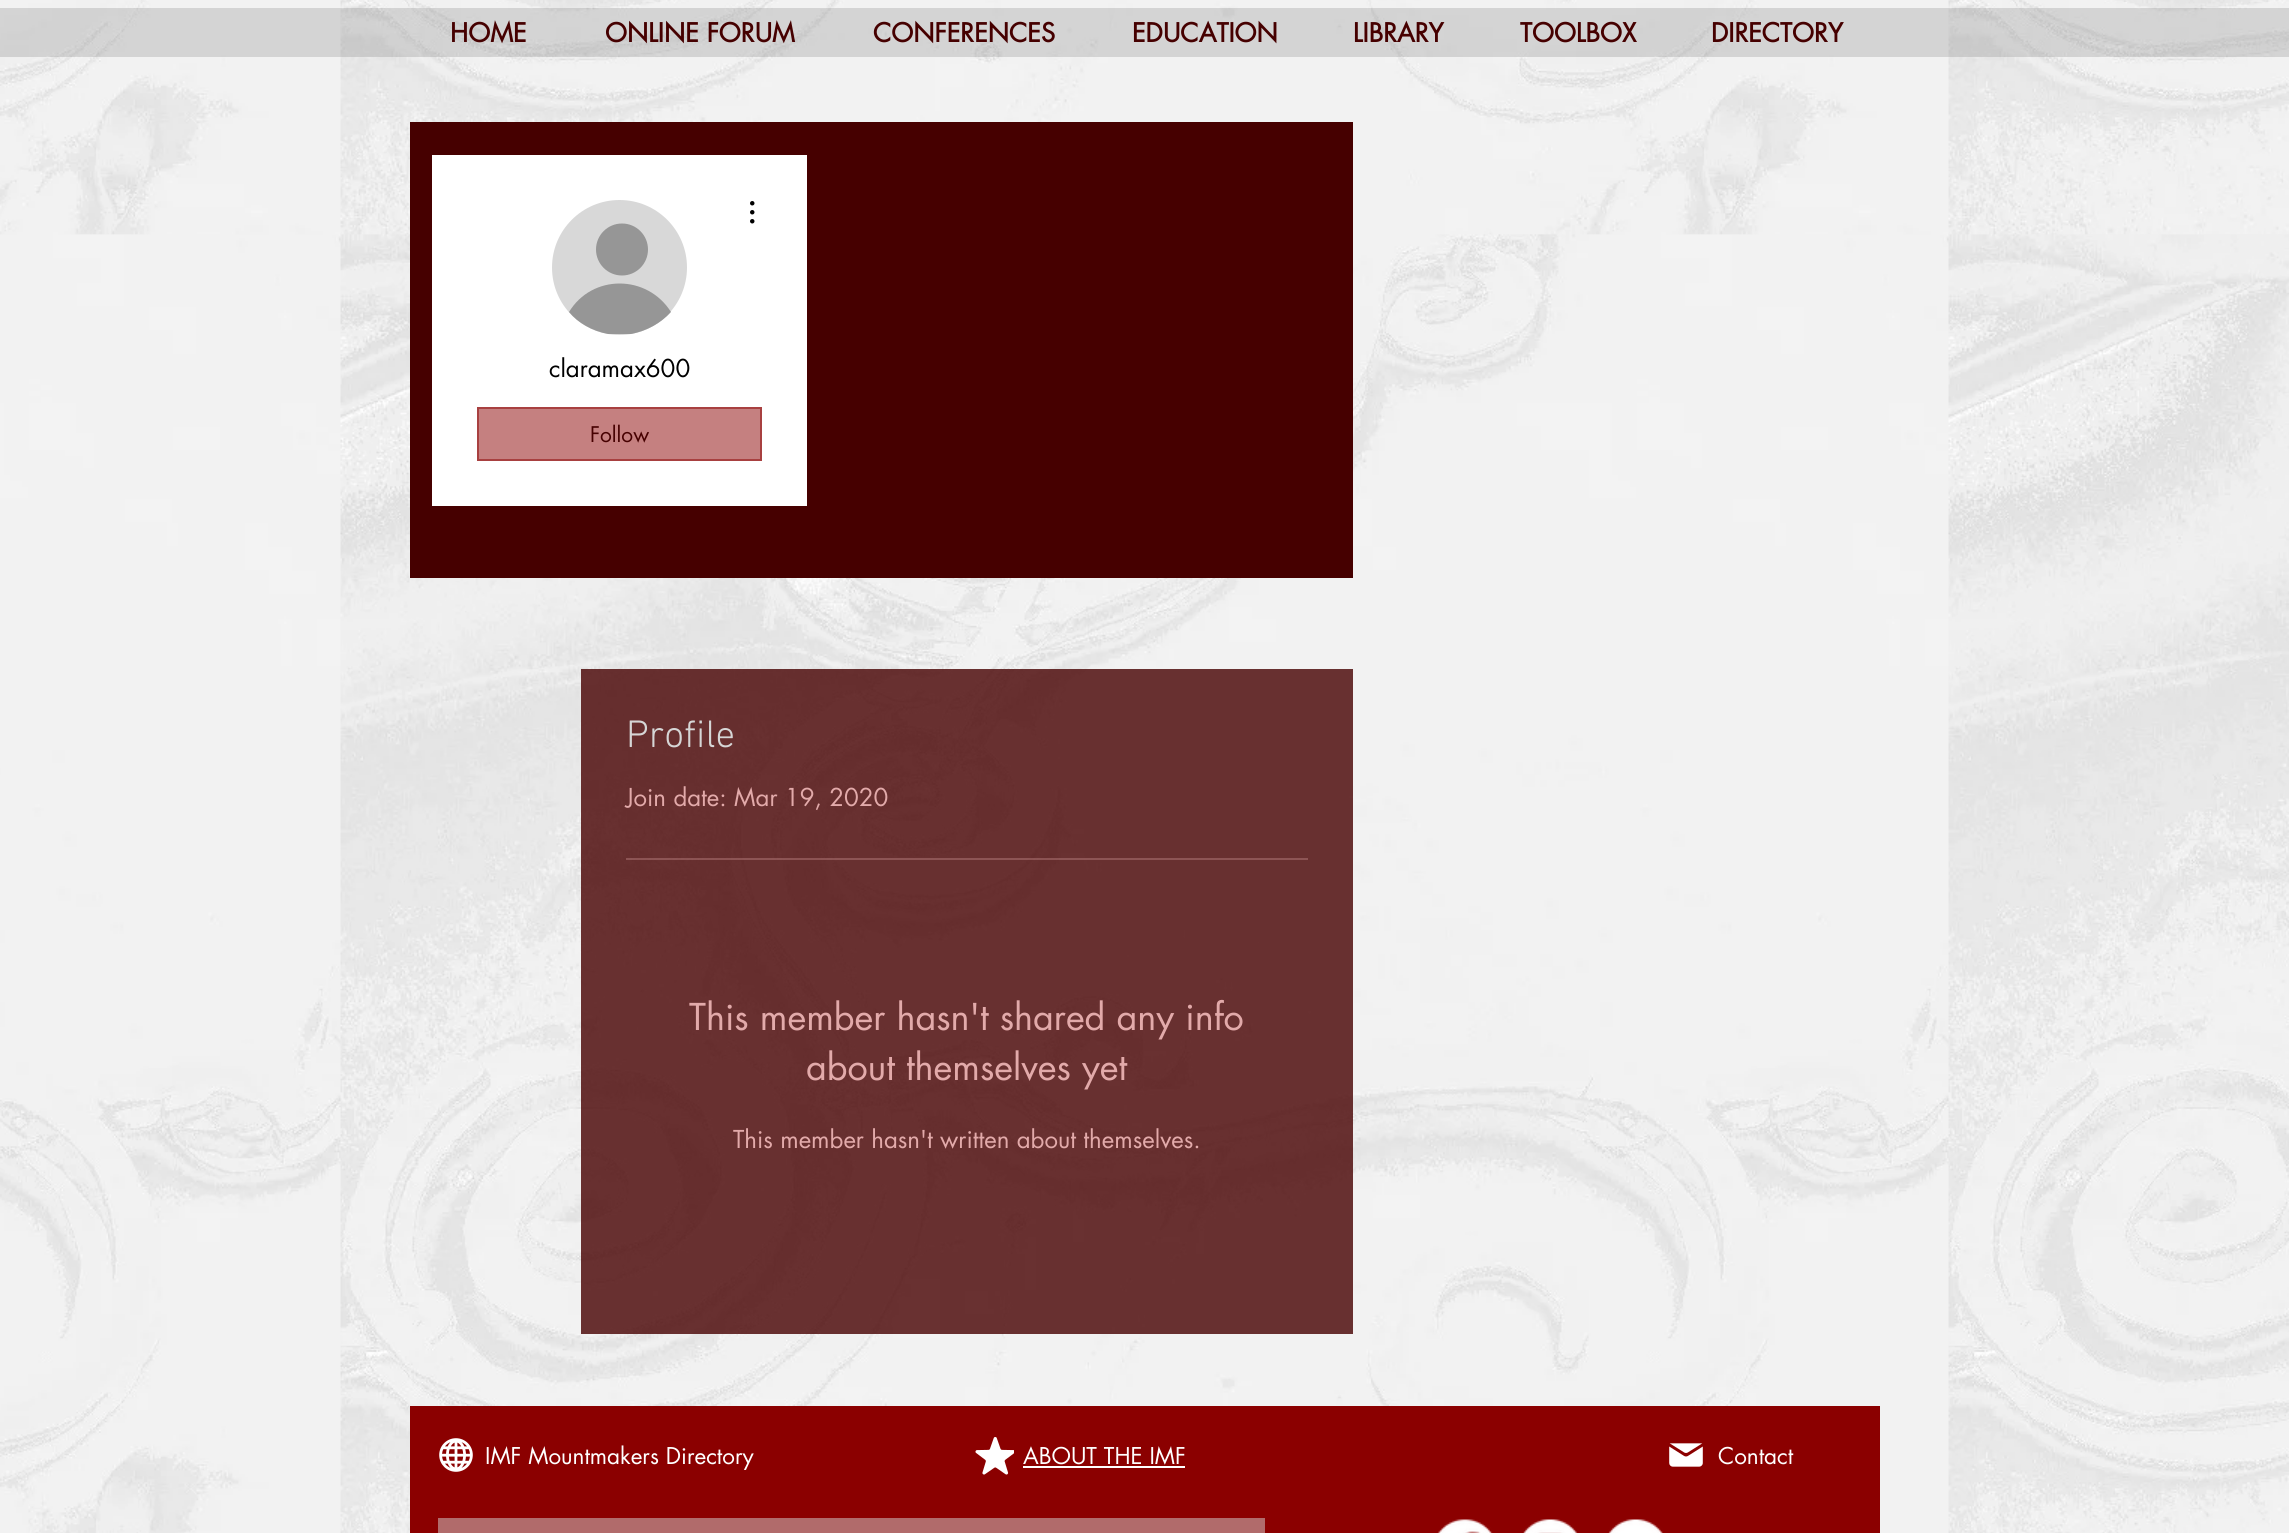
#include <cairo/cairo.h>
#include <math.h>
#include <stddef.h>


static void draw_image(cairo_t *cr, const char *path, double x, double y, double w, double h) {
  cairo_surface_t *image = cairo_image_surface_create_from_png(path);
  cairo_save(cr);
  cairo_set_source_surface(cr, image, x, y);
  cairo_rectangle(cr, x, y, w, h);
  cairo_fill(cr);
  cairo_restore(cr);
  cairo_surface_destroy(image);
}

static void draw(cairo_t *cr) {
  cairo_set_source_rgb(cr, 1, 1, 1);
  cairo_paint(cr);
  draw_image(cr, "images/1.png", 0, 0, 2289, 1533);
  cairo_set_source_rgba(cr, 132 / 255.0, 132 / 255.0, 132 / 255.0, 0.28);
  cairo_rectangle(cr, 0, 8, 2289, 49);
  cairo_fill(cr);
  cairo_set_source_rgb(cr, 70 / 255.0, 0, 0);
  cairo_rectangle(cr, 410, 122, 943, 456);
  cairo_fill(cr);
  cairo_set_source_rgb(cr, 1, 1, 1);
  cairo_rectangle(cr, 432, 155, 375, 351);
  cairo_fill(cr);
  cairo_set_source_rgb(cr, 216 / 255.0, 216 / 255.0, 216 / 255.0);
  cairo_arc(cr, 619.5, 267.5, 67.5, 0, 2 * M_PI);
  cairo_fill(cr);
  cairo_set_source_rgb(cr, 150 / 255.0, 150 / 255.0, 150 / 255.0);
  cairo_arc(cr, 622, 249.5, 26, 0, 2 * M_PI);
  cairo_fill(cr);
  cairo_new_path(cr);
  cairo_move_to(cr, 608, 334);
  cairo_curve_to(cr, 592, 331, 578, 323, 569, 312);
  cairo_curve_to(cr, 592, 274, 647, 274, 671, 312);
  cairo_curve_to(cr, 661, 323, 647, 331, 631, 334);
  cairo_close_path(cr);
  cairo_fill(cr);
  draw_image(cr, "images/2.png", 750, 201, 5, 23);
  cairo_set_source_rgb(cr, 197 / 255.0, 128 / 255.0, 128 / 255.0);
  cairo_rectangle(cr, 478, 408, 283, 52);
  cairo_fill_preserve(cr);
  cairo_set_source_rgb(cr, 168 / 255.0, 64 / 255.0, 64 / 255.0);
  cairo_stroke(cr);
  cairo_set_source_rgba(cr, 70 / 255.0, 0, 0, 0.8);
  cairo_rectangle(cr, 581, 669, 772, 665);
  cairo_fill(cr);
  cairo_set_source_rgba(cr, 226 / 255.0, 170 / 255.0, 170 / 255.0, 0.3);
  cairo_rectangle(cr, 626, 858, 682, 2);
  cairo_fill(cr);
  cairo_set_source_rgb(cr, 139 / 255.0, 0, 0);
  cairo_rectangle(cr, 410, 1406, 1470, 127);
  cairo_fill(cr);
  draw_image(cr, "images/3.png", 439, 1438, 34, 34);
  draw_image(cr, "images/4.png", 975, 1437, 39, 38);
  cairo_set_source_rgb(cr, 1, 1, 1);
  cairo_rectangle(cr, 1023, 1466, 162, 2);
  cairo_fill(cr);
  draw_image(cr, "images/5.png", 1669, 1443, 34, 24);
  cairo_set_source_rgb(cr, 177 / 255.0, 107 / 255.0, 107 / 255.0);
  cairo_rectangle(cr, 438, 1518, 827, 15);
  cairo_fill(cr);
  draw_image(cr, "images/6.png", 1437, 1519, 56, 14);
  draw_image(cr, "images/7.png", 1523, 1519, 55, 14);
  draw_image(cr, "images/8.png", 1608, 1519, 55, 14);
  cairo_select_font_face(cr, "futura", CAIRO_FONT_SLANT_NORMAL, CAIRO_FONT_WEIGHT_BOLD);
  cairo_set_font_size(cr, 25.5);
  cairo_set_source_rgb(cr, 70 / 255.0, 0, 0);
  cairo_move_to(cr, 450, 42);
  cairo_show_text(cr, "HOME");
  cairo_move_to(cr, 605, 42);
  cairo_show_text(cr, "ONLINE FORUM");
  cairo_move_to(cr, 873, 42);
  cairo_show_text(cr, "CONFERENCES");
  cairo_move_to(cr, 1132, 42);
  cairo_show_text(cr, "EDUCATION");
  cairo_move_to(cr, 1353, 42);
  cairo_show_text(cr, "LIBRARY");
  cairo_move_to(cr, 1520, 42);
  cairo_show_text(cr, "TOOLBOX");
  cairo_move_to(cr, 1711, 42);
  cairo_show_text(cr, "DIRECTORY");
  cairo_select_font_face(cr, "futura", CAIRO_FONT_SLANT_NORMAL, CAIRO_FONT_WEIGHT_NORMAL);
  cairo_set_font_size(cr, 24);
  cairo_set_source_rgb(cr, 0, 0, 0);
  cairo_move_to(cr, 549, 377);
  cairo_show_text(cr, "claramax600");
  cairo_set_font_size(cr, 21);
  cairo_set_source_rgb(cr, 70 / 255.0, 0, 0);
  cairo_move_to(cr, 590, 442);
  cairo_show_text(cr, "Follow");
  cairo_select_font_face(cr, "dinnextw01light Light", CAIRO_FONT_SLANT_NORMAL, CAIRO_FONT_WEIGHT_NORMAL);
  cairo_set_font_size(cr, 39);
  cairo_set_source_rgb(cr, 214 / 255.0, 214 / 255.0, 214 / 255.0);
  cairo_move_to(cr, 626, 747);
  cairo_show_text(cr, "Profile");
  cairo_select_font_face(cr, "futura", CAIRO_FONT_SLANT_NORMAL, CAIRO_FONT_WEIGHT_NORMAL);
  cairo_set_font_size(cr, 24);
  cairo_set_source_rgb(cr, 226 / 255.0, 170 / 255.0, 170 / 255.0);
  cairo_move_to(cr, 626, 806);
  cairo_show_text(cr, "Join date: Mar 19, 2020");
  cairo_set_font_size(cr, 36);
  cairo_move_to(cr, 689, 1030);
  cairo_show_text(cr, "This member hasn't shared any info");
  cairo_move_to(cr, 806, 1080);
  cairo_show_text(cr, "about themselves yet");
  cairo_set_font_size(cr, 24);
  cairo_move_to(cr, 733, 1148);
  cairo_show_text(cr, "This member hasn't written about themselves.");
  cairo_set_font_size(cr, 22.5);
  cairo_set_source_rgb(cr, 1, 1, 1);
  cairo_move_to(cr, 485, 1464);
  cairo_show_text(cr, "IMF Mountmakers Directory");
  cairo_move_to(cr, 1023, 1464);
  cairo_show_text(cr, "ABOUT THE IMF");
  cairo_move_to(cr, 1718, 1464);
  cairo_show_text(cr, "Contact");
}

int main(void) {
  cairo_surface_t *surface = cairo_image_surface_create(CAIRO_FORMAT_RGB24, 2289, 1533);
  cairo_t *cr = cairo_create(surface);
  cairo_font_options_t *options = cairo_font_options_create();
  cairo_font_options_set_hint_metrics(options, CAIRO_HINT_METRICS_OFF);
  cairo_font_options_set_hint_style(options, CAIRO_HINT_STYLE_NONE);
  cairo_set_font_options(cr, options);
  cairo_set_miter_limit(cr, 4);
  draw(cr);
  cairo_surface_write_to_png(surface, "out.png");
  cairo_font_options_destroy(options);
  cairo_destroy(cr);
  cairo_surface_destroy(surface);
  return 0;
}
